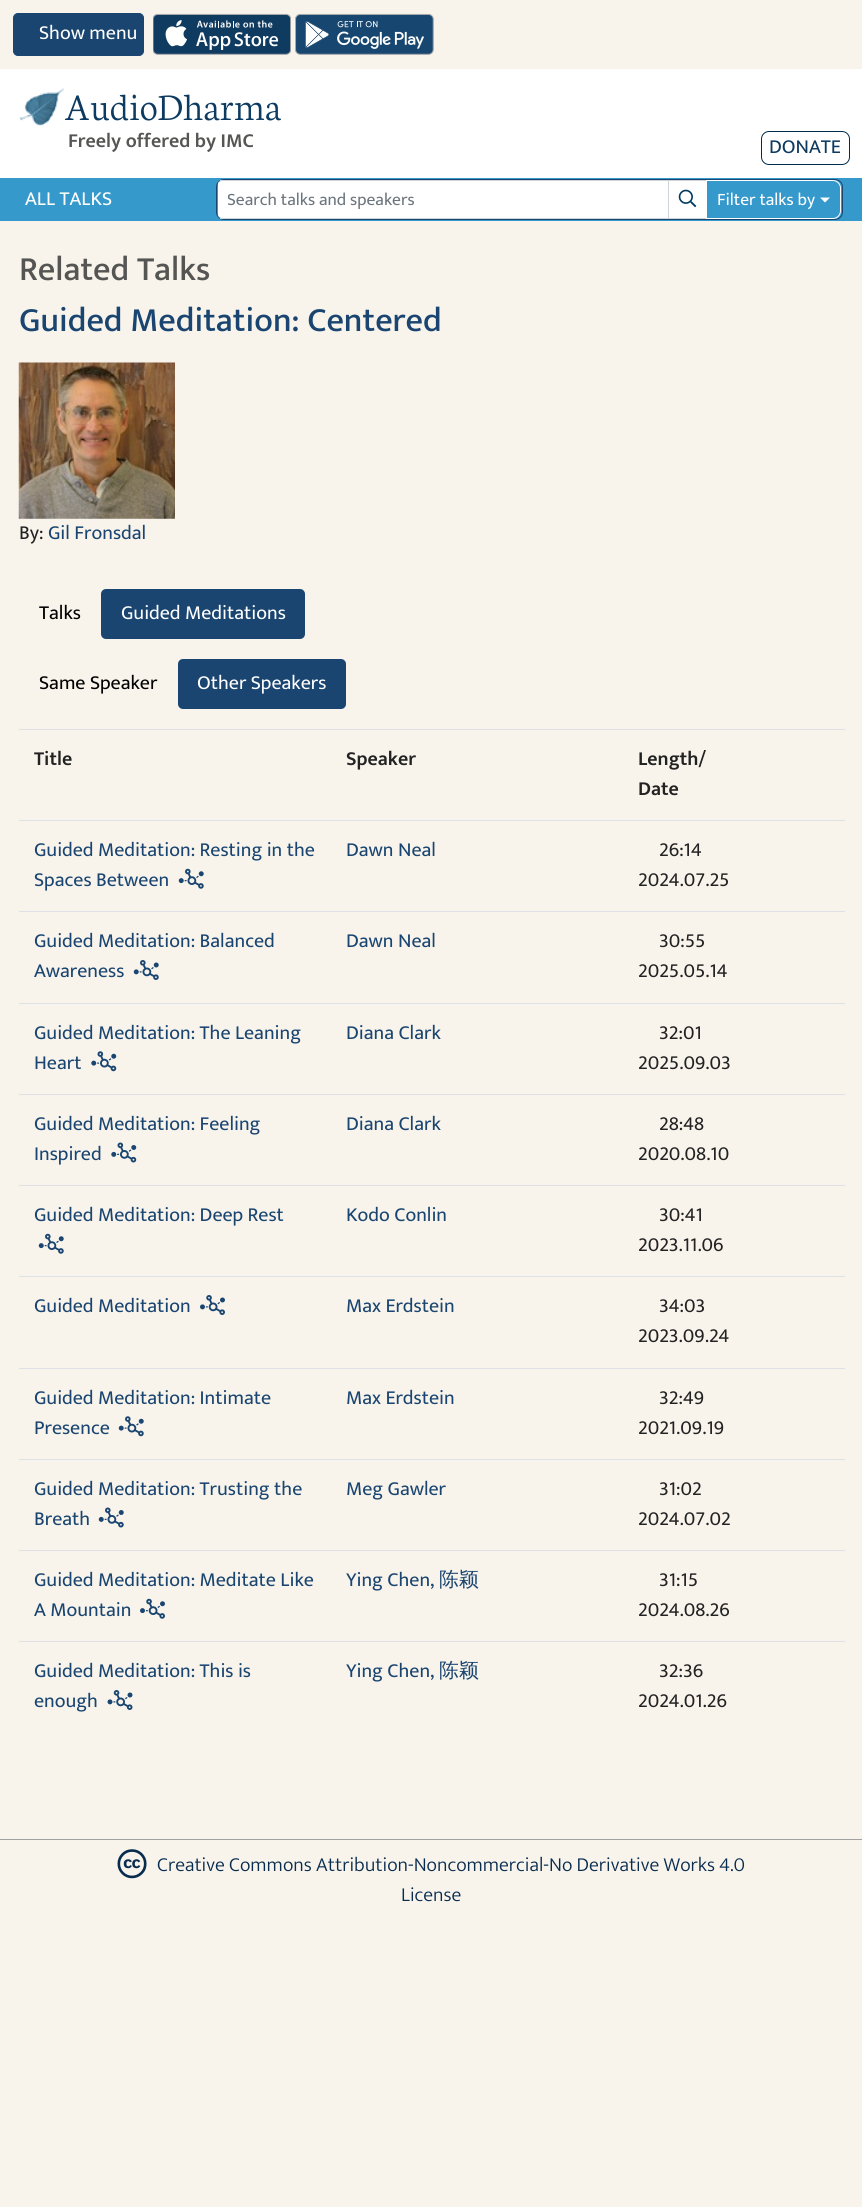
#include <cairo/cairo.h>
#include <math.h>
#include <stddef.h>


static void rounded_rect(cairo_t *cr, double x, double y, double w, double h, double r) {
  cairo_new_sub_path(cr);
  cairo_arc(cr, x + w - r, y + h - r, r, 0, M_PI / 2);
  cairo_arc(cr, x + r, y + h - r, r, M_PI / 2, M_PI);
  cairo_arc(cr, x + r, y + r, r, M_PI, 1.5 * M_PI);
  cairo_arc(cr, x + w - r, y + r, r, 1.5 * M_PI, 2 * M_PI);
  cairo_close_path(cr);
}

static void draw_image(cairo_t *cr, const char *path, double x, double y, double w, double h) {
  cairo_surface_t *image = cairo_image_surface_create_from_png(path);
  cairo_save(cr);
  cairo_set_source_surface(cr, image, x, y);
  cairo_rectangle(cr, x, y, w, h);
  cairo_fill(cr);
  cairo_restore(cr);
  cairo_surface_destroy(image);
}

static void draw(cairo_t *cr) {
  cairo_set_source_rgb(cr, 248 / 255.0, 244 / 255.0, 236 / 255.0);
  cairo_paint(cr);
  cairo_set_source_rgb(cr, 26 / 255.0, 69 / 255.0, 112 / 255.0);
  rounded_rect(cr, 13.5, 13.5, 130, 42, 4.5);
  cairo_fill_preserve(cr);
  cairo_set_line_width(cr, 1);
  cairo_stroke(cr);
  draw_image(cr, "images/1.png", 153, 13, 138, 42);
  draw_image(cr, "images/2.png", 295, 13, 139, 42);
  cairo_set_source_rgb(cr, 1, 1, 1);
  cairo_rectangle(cr, 0, 69, 862, 109);
  cairo_fill(cr);
  draw_image(cr, "images/3.png", 19, 87, 45, 39);
  rounded_rect(cr, 761.5, 131.5, 88, 33, 7.5);
  cairo_set_source_rgb(cr, 0, 45 / 255.0, 78 / 255.0);
  cairo_stroke(cr);
  cairo_set_source_rgb(cr, 54 / 255.0, 153 / 255.0, 204 / 255.0);
  cairo_rectangle(cr, 0, 178, 862, 43);
  cairo_fill(cr);
  rounded_rect(cr, 216.5, 179.5, 626, 40, 7.5);
  cairo_set_source_rgb(cr, 26 / 255.0, 69 / 255.0, 112 / 255.0);
  cairo_stroke(cr);
  cairo_set_source_rgb(cr, 1, 1, 1);
  cairo_new_path(cr);
  cairo_move_to(cr, 222, 181);
  cairo_line_to(cr, 668, 181);
  cairo_line_to(cr, 668, 218);
  cairo_line_to(cr, 222, 218);
  cairo_curve_to(cr, 219, 218, 218, 216, 218, 215);
  cairo_line_to(cr, 218, 184);
  cairo_curve_to(cr, 218, 182, 219, 181, 222, 181);
  cairo_close_path(cr);
  cairo_fill(cr);
  cairo_set_source_rgb(cr, 206 / 255.0, 212 / 255.0, 218 / 255.0);
  cairo_rectangle(cr, 220, 180, 449, 1);
  cairo_fill(cr);
  cairo_rectangle(cr, 220, 218, 449, 1);
  cairo_fill(cr);
  cairo_set_source_rgb(cr, 1, 1, 1);
  cairo_rectangle(cr, 669, 181, 37, 37);
  cairo_fill(cr);
  cairo_rectangle(cr, 668.5, 180.5, 39, 38);
  cairo_set_source_rgb(cr, 206 / 255.0, 212 / 255.0, 218 / 255.0);
  cairo_stroke(cr);
  draw_image(cr, "images/4.png", 678, 189, 19, 19);
  cairo_set_source_rgb(cr, 54 / 255.0, 153 / 255.0, 204 / 255.0);
  cairo_new_path(cr);
  cairo_move_to(cr, 706.5, 180.5);
  cairo_line_to(cr, 833, 180.5);
  cairo_curve_to(cr, 837, 180.5, 840.5, 184, 840.5, 188);
  cairo_line_to(cr, 840.5, 211);
  cairo_curve_to(cr, 840.5, 215, 837, 218.5, 833, 218.5);
  cairo_line_to(cr, 706.5, 218.5);
  cairo_close_path(cr);
  cairo_fill_preserve(cr);
  cairo_set_source_rgb(cr, 1, 1, 1);
  cairo_stroke(cr);
  cairo_new_path(cr);
  cairo_move_to(cr, 820, 197.5);
  cairo_line_to(cr, 830, 197.5);
  cairo_line_to(cr, 825, 202.5);
  cairo_close_path(cr);
  cairo_fill(cr);
  draw_image(cr, "images/5.png", 18, 362, 157, 157);
  cairo_set_source_rgb(cr, 26 / 255.0, 69 / 255.0, 112 / 255.0);
  rounded_rect(cr, 101, 589, 204, 50, 5);
  cairo_fill(cr);
  rounded_rect(cr, 178, 659, 168, 50, 5);
  cairo_fill(cr);
  cairo_set_source_rgb(cr, 222 / 255.0, 226 / 255.0, 230 / 255.0);
  cairo_rectangle(cr, 19, 729, 826, 1);
  cairo_fill(cr);
  draw_image(cr, "images/6.png", 178, 868, 26, 21);
  cairo_rectangle(cr, 19, 820, 826, 1);
  cairo_fill(cr);
  draw_image(cr, "images/7.png", 133, 960, 26, 20);
  cairo_rectangle(cr, 19, 911, 826, 1);
  cairo_fill(cr);
  draw_image(cr, "images/8.png", 91, 1051, 26, 21);
  cairo_rectangle(cr, 19, 1003, 826, 1);
  cairo_fill(cr);
  draw_image(cr, "images/9.png", 111, 1142, 26, 21);
  cairo_rectangle(cr, 19, 1094, 826, 1);
  cairo_fill(cr);
  draw_image(cr, "images/6.png", 38, 1233, 26, 21);
  cairo_rectangle(cr, 19, 1185, 826, 1);
  cairo_fill(cr);
  draw_image(cr, "images/10.png", 200, 1295, 25, 20);
  cairo_rectangle(cr, 19, 1276, 826, 1);
  cairo_fill(cr);
  draw_image(cr, "images/11.png", 118, 1416, 26, 21);
  cairo_rectangle(cr, 19, 1368, 826, 1);
  cairo_fill(cr);
  draw_image(cr, "images/12.png", 98, 1507, 26, 21);
  cairo_rectangle(cr, 19, 1459, 826, 1);
  cairo_fill(cr);
  draw_image(cr, "images/13.png", 140, 1598, 25, 21);
  cairo_rectangle(cr, 19, 1550, 826, 1);
  cairo_fill(cr);
  draw_image(cr, "images/14.png", 107, 1690, 26, 20);
  cairo_rectangle(cr, 19, 1641, 826, 1);
  cairo_fill(cr);
  cairo_set_source_rgb(cr, 161 / 255.0, 161 / 255.0, 161 / 255.0);
  cairo_rectangle(cr, 0, 1839, 862, 1);
  cairo_fill(cr);
  draw_image(cr, "images/15.png", 117, 1849, 30, 30);
  cairo_select_font_face(cr, "Mukta Vaani", CAIRO_FONT_SLANT_NORMAL, CAIRO_FONT_WEIGHT_NORMAL);
  cairo_set_font_size(cr, 20);
  cairo_set_source_rgb(cr, 1, 1, 1);
  cairo_move_to(cr, 39, 39);
  cairo_show_text(cr, "Show menu");
  cairo_select_font_face(cr, "Neuton Light", CAIRO_FONT_SLANT_NORMAL, CAIRO_FONT_WEIGHT_NORMAL);
  cairo_set_font_size(cr, 40);
  cairo_set_source_rgb(cr, 13 / 255.0, 58 / 255.0, 96 / 255.0);
  cairo_move_to(cr, 64, 120);
  cairo_show_text(cr, "AudioDharma");
  cairo_select_font_face(cr, "Mukta Vaani SemiBold", CAIRO_FONT_SLANT_NORMAL, CAIRO_FONT_WEIGHT_NORMAL);
  cairo_set_font_size(cr, 20);
  cairo_set_source_rgb(cr, 85 / 255.0, 86 / 255.0, 83 / 255.0);
  cairo_move_to(cr, 68, 147);
  cairo_show_text(cr, "Freely offered by IMC");
  cairo_select_font_face(cr, "Mukta Vaani", CAIRO_FONT_SLANT_NORMAL, CAIRO_FONT_WEIGHT_NORMAL);
  cairo_set_source_rgb(cr, 13 / 255.0, 58 / 255.0, 96 / 255.0);
  cairo_move_to(cr, 769, 153);
  cairo_show_text(cr, "DONATE");
  cairo_set_source_rgb(cr, 1, 1, 1);
  cairo_move_to(cr, 25, 205);
  cairo_show_text(cr, "ALL TALKS");
  cairo_save(cr);
  cairo_rectangle(cr, 228, 185, 412, 29);
  cairo_clip(cr);
  cairo_set_font_size(cr, 17.5);
  cairo_set_source_rgb(cr, 108 / 255.0, 117 / 255.0, 125 / 255.0);
  cairo_move_to(cr, 227, 205);
  cairo_show_text(cr, "Search talks and speakers");
  cairo_restore(cr);
  cairo_set_font_size(cr, 17.5);
  cairo_move_to(cr, 717, 205);
  cairo_show_text(cr, "Filter talks by");
  cairo_select_font_face(cr, "Mukta Vaani Medium", CAIRO_FONT_SLANT_NORMAL, CAIRO_FONT_WEIGHT_NORMAL);
  cairo_set_font_size(cr, 34.25);
  cairo_set_source_rgb(cr, 85 / 255.0, 86 / 255.0, 83 / 255.0);
  cairo_move_to(cr, 19, 280);
  cairo_show_text(cr, "Related Talks");
  cairo_set_source_rgb(cr, 26 / 255.0, 69 / 255.0, 112 / 255.0);
  cairo_move_to(cr, 19, 331);
  cairo_show_text(cr, "Guided Meditation: Centered");
  cairo_select_font_face(cr, "Mukta Vaani", CAIRO_FONT_SLANT_NORMAL, CAIRO_FONT_WEIGHT_NORMAL);
  cairo_set_font_size(cr, 20);
  cairo_set_source_rgb(cr, 34 / 255.0, 34 / 255.0, 34 / 255.0);
  cairo_move_to(cr, 19, 539);
  cairo_show_text(cr, "By:");
  cairo_set_source_rgb(cr, 26 / 255.0, 69 / 255.0, 112 / 255.0);
  cairo_move_to(cr, 48, 539);
  cairo_show_text(cr, "Gil Fronsdal");
  cairo_set_source_rgb(cr, 0, 0, 0);
  cairo_move_to(cr, 39, 619);
  cairo_show_text(cr, "Talks");
  cairo_set_source_rgb(cr, 1, 1, 1);
  cairo_move_to(cr, 121, 619);
  cairo_show_text(cr, "Guided Meditations");
  cairo_set_source_rgb(cr, 0, 0, 0);
  cairo_move_to(cr, 39, 689);
  cairo_show_text(cr, "Same Speaker");
  cairo_set_source_rgb(cr, 1, 1, 1);
  cairo_move_to(cr, 197, 689);
  cairo_show_text(cr, "Other Speakers");
  cairo_select_font_face(cr, "Mukta Vaani SemiBold", CAIRO_FONT_SLANT_NORMAL, CAIRO_FONT_WEIGHT_NORMAL);
  cairo_set_source_rgb(cr, 34 / 255.0, 34 / 255.0, 34 / 255.0);
  cairo_move_to(cr, 34, 765);
  cairo_show_text(cr, "Title");
  cairo_move_to(cr, 346, 765);
  cairo_show_text(cr, "Speaker");
  cairo_move_to(cr, 638, 765);
  cairo_show_text(cr, "Length/");
  cairo_move_to(cr, 638, 795);
  cairo_show_text(cr, "Date");
  cairo_select_font_face(cr, "Mukta Vaani", CAIRO_FONT_SLANT_NORMAL, CAIRO_FONT_WEIGHT_NORMAL);
  cairo_set_source_rgb(cr, 26 / 255.0, 69 / 255.0, 112 / 255.0);
  cairo_move_to(cr, 34, 856);
  cairo_show_text(cr, "Guided Meditation: Resting in the");
  cairo_move_to(cr, 34, 886);
  cairo_show_text(cr, "Spaces Between");
  cairo_move_to(cr, 346, 856);
  cairo_show_text(cr, "Dawn Neal");
  cairo_set_source_rgb(cr, 34 / 255.0, 34 / 255.0, 34 / 255.0);
  cairo_move_to(cr, 659, 856);
  cairo_show_text(cr, "26:14");
  cairo_move_to(cr, 638, 886);
  cairo_show_text(cr, "2024.07.25");
  cairo_set_source_rgb(cr, 26 / 255.0, 69 / 255.0, 112 / 255.0);
  cairo_move_to(cr, 34, 947);
  cairo_show_text(cr, "Guided Meditation: Balanced");
  cairo_move_to(cr, 34, 977);
  cairo_show_text(cr, "Awareness");
  cairo_move_to(cr, 346, 947);
  cairo_show_text(cr, "Dawn Neal");
  cairo_set_source_rgb(cr, 34 / 255.0, 34 / 255.0, 34 / 255.0);
  cairo_move_to(cr, 659, 947);
  cairo_show_text(cr, "30:55");
  cairo_move_to(cr, 638, 977);
  cairo_show_text(cr, "2025.05.14");
  cairo_set_source_rgb(cr, 26 / 255.0, 69 / 255.0, 112 / 255.0);
  cairo_move_to(cr, 34, 1039);
  cairo_show_text(cr, "Guided Meditation: The Leaning");
  cairo_move_to(cr, 34, 1069);
  cairo_show_text(cr, "Heart");
  cairo_move_to(cr, 346, 1039);
  cairo_show_text(cr, "Diana Clark");
  cairo_set_source_rgb(cr, 34 / 255.0, 34 / 255.0, 34 / 255.0);
  cairo_move_to(cr, 659, 1039);
  cairo_show_text(cr, "32:01");
  cairo_move_to(cr, 638, 1069);
  cairo_show_text(cr, "2025.09.03");
  cairo_set_source_rgb(cr, 26 / 255.0, 69 / 255.0, 112 / 255.0);
  cairo_move_to(cr, 34, 1130);
  cairo_show_text(cr, "Guided Meditation: Feeling");
  cairo_move_to(cr, 34, 1160);
  cairo_show_text(cr, "Inspired");
  cairo_move_to(cr, 346, 1130);
  cairo_show_text(cr, "Diana Clark");
  cairo_set_source_rgb(cr, 34 / 255.0, 34 / 255.0, 34 / 255.0);
  cairo_move_to(cr, 659, 1130);
  cairo_show_text(cr, "28:48");
  cairo_move_to(cr, 638, 1160);
  cairo_show_text(cr, "2020.08.10");
  cairo_set_source_rgb(cr, 26 / 255.0, 69 / 255.0, 112 / 255.0);
  cairo_move_to(cr, 34, 1221);
  cairo_show_text(cr, "Guided Meditation: Deep Rest");
  cairo_move_to(cr, 346, 1221);
  cairo_show_text(cr, "Kodo Conlin");
  cairo_set_source_rgb(cr, 34 / 255.0, 34 / 255.0, 34 / 255.0);
  cairo_move_to(cr, 659, 1221);
  cairo_show_text(cr, "30:41");
  cairo_move_to(cr, 638, 1251);
  cairo_show_text(cr, "2023.11.06");
  cairo_set_source_rgb(cr, 26 / 255.0, 69 / 255.0, 112 / 255.0);
  cairo_move_to(cr, 34, 1312);
  cairo_show_text(cr, "Guided Meditation");
  cairo_move_to(cr, 346, 1312);
  cairo_show_text(cr, "Max Erdstein");
  cairo_set_source_rgb(cr, 34 / 255.0, 34 / 255.0, 34 / 255.0);
  cairo_move_to(cr, 659, 1312);
  cairo_show_text(cr, "34:03");
  cairo_move_to(cr, 638, 1342);
  cairo_show_text(cr, "2023.09.24");
  cairo_set_source_rgb(cr, 26 / 255.0, 69 / 255.0, 112 / 255.0);
  cairo_move_to(cr, 34, 1404);
  cairo_show_text(cr, "Guided Meditation: Intimate");
  cairo_move_to(cr, 34, 1434);
  cairo_show_text(cr, "Presence");
  cairo_move_to(cr, 346, 1404);
  cairo_show_text(cr, "Max Erdstein");
  cairo_set_source_rgb(cr, 34 / 255.0, 34 / 255.0, 34 / 255.0);
  cairo_move_to(cr, 659, 1404);
  cairo_show_text(cr, "32:49");
  cairo_move_to(cr, 638, 1434);
  cairo_show_text(cr, "2021.09.19");
  cairo_set_source_rgb(cr, 26 / 255.0, 69 / 255.0, 112 / 255.0);
  cairo_move_to(cr, 34, 1495);
  cairo_show_text(cr, "Guided Meditation: Trusting the");
  cairo_move_to(cr, 34, 1525);
  cairo_show_text(cr, "Breath");
  cairo_move_to(cr, 346, 1495);
  cairo_show_text(cr, "Meg Gawler");
  cairo_set_source_rgb(cr, 34 / 255.0, 34 / 255.0, 34 / 255.0);
  cairo_move_to(cr, 659, 1495);
  cairo_show_text(cr, "31:02");
  cairo_move_to(cr, 638, 1525);
  cairo_show_text(cr, "2024.07.02");
  cairo_set_source_rgb(cr, 26 / 255.0, 69 / 255.0, 112 / 255.0);
  cairo_move_to(cr, 34, 1586);
  cairo_show_text(cr, "Guided Meditation: Meditate Like");
  cairo_move_to(cr, 34, 1616);
  cairo_show_text(cr, "A Mountain");
  cairo_move_to(cr, 346, 1586);
  cairo_show_text(cr, "Ying Chen,");
  cairo_select_font_face(cr, "WenQuanYi Zen Hei Medium", CAIRO_FONT_SLANT_NORMAL, CAIRO_FONT_WEIGHT_NORMAL);
  cairo_move_to(cr, 439, 1586);
  cairo_show_text(cr, "陈颖");
  cairo_select_font_face(cr, "Mukta Vaani", CAIRO_FONT_SLANT_NORMAL, CAIRO_FONT_WEIGHT_NORMAL);
  cairo_set_source_rgb(cr, 34 / 255.0, 34 / 255.0, 34 / 255.0);
  cairo_move_to(cr, 659, 1586);
  cairo_show_text(cr, "31:15");
  cairo_move_to(cr, 638, 1616);
  cairo_show_text(cr, "2024.08.26");
  cairo_set_source_rgb(cr, 26 / 255.0, 69 / 255.0, 112 / 255.0);
  cairo_move_to(cr, 34, 1677);
  cairo_show_text(cr, "Guided Meditation: This is");
  cairo_move_to(cr, 34, 1707);
  cairo_show_text(cr, "enough");
  cairo_move_to(cr, 346, 1677);
  cairo_show_text(cr, "Ying Chen,");
  cairo_select_font_face(cr, "WenQuanYi Zen Hei Medium", CAIRO_FONT_SLANT_NORMAL, CAIRO_FONT_WEIGHT_NORMAL);
  cairo_move_to(cr, 439, 1677);
  cairo_show_text(cr, "陈颖");
  cairo_select_font_face(cr, "Mukta Vaani", CAIRO_FONT_SLANT_NORMAL, CAIRO_FONT_WEIGHT_NORMAL);
  cairo_set_source_rgb(cr, 34 / 255.0, 34 / 255.0, 34 / 255.0);
  cairo_move_to(cr, 659, 1677);
  cairo_show_text(cr, "32:36");
  cairo_move_to(cr, 638, 1707);
  cairo_show_text(cr, "2024.01.26");
  cairo_select_font_face(cr, "Mukta Vaani Light", CAIRO_FONT_SLANT_NORMAL, CAIRO_FONT_WEIGHT_NORMAL);
  cairo_set_source_rgb(cr, 8 / 255.0, 44 / 255.0, 78 / 255.0);
  cairo_move_to(cr, 157, 1871);
  cairo_show_text(cr, "Creative Commons Attribution-Noncommercial-No Derivative Works 4.0");
  cairo_move_to(cr, 401, 1901);
  cairo_show_text(cr, "License");
}

int main(void) {
  cairo_surface_t *surface = cairo_image_surface_create(CAIRO_FORMAT_RGB24, 862, 2207);
  cairo_t *cr = cairo_create(surface);
  cairo_font_options_t *options = cairo_font_options_create();
  cairo_font_options_set_hint_metrics(options, CAIRO_HINT_METRICS_OFF);
  cairo_font_options_set_hint_style(options, CAIRO_HINT_STYLE_NONE);
  cairo_set_font_options(cr, options);
  cairo_set_miter_limit(cr, 4);
  draw(cr);
  cairo_surface_write_to_png(surface, "out.png");
  cairo_font_options_destroy(options);
  cairo_destroy(cr);
  cairo_surface_destroy(surface);
  return 0;
}
